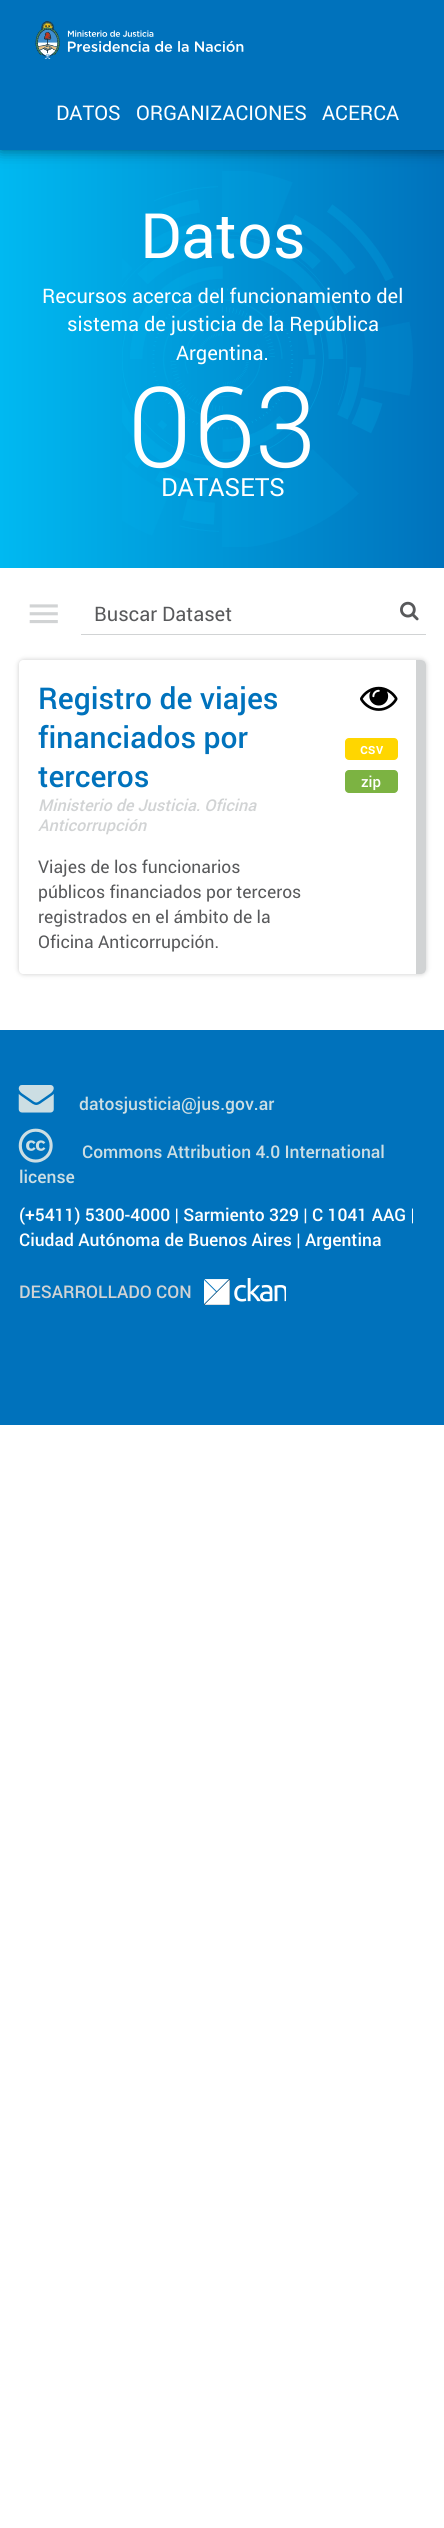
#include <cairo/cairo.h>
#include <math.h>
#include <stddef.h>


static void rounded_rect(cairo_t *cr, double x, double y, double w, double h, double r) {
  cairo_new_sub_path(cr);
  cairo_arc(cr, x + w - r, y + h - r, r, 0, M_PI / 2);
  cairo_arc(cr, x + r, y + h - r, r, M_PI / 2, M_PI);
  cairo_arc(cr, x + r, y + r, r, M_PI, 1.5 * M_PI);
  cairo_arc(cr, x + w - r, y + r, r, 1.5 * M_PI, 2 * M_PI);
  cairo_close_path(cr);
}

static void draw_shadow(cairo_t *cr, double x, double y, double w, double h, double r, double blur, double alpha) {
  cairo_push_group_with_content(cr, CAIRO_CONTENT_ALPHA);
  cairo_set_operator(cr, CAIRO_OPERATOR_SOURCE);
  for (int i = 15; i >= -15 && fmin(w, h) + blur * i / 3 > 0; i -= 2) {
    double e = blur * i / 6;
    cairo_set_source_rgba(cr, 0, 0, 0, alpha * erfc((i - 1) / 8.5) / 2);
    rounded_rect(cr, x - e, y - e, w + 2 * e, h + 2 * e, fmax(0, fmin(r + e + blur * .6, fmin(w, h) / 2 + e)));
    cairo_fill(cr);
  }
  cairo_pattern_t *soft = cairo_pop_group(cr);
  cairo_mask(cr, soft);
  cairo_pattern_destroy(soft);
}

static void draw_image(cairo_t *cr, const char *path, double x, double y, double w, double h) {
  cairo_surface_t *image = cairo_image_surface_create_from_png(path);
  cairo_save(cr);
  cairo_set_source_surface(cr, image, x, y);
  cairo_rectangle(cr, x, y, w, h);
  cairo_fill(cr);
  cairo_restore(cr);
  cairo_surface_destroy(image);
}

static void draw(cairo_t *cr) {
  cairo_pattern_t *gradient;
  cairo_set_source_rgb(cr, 1, 1, 1);
  cairo_paint(cr);
  gradient = cairo_pattern_create_linear(0, 359, 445, 359);
  cairo_pattern_add_color_stop_rgba(gradient, 0, 0, 185 / 255.0, 241 / 255.0, 1);
  cairo_pattern_add_color_stop_rgba(gradient, 1, 0, 114 / 255.0, 188 / 255.0, 1);
  cairo_set_source(cr, gradient);
  cairo_pattern_destroy(gradient);
  cairo_rectangle(cr, 0, 150, 444, 418);
  cairo_fill(cr);
  draw_image(cr, "images/2.png", 122, 171, 291, 376);
  cairo_set_source_rgb(cr, 0, 0, 0);
  draw_shadow(cr, 0, 0, 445, 150, 0, 7.5, 0.5);
  cairo_set_source_rgb(cr, 0, 114 / 255.0, 188 / 255.0);
  cairo_rectangle(cr, 0, 0, 444, 150);
  cairo_fill(cr);
  draw_image(cr, "images/1.png", 35, 21, 209, 38);
  draw_image(cr, "images/3.png", 29, 604, 29, 20);
  cairo_set_source_rgb(cr, 209 / 255.0, 211 / 255.0, 212 / 255.0);
  cairo_rectangle(cr, 81, 634, 345, 1);
  cairo_fill(cr);
  draw_image(cr, "images/4.png", 400, 601, 19, 20);
  cairo_save(cr);
  cairo_set_fill_rule(cr, CAIRO_FILL_RULE_EVEN_ODD);
  cairo_new_path(cr);
  cairo_move_to(cr, 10, 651);
  cairo_line_to(cr, 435, 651);
  cairo_line_to(cr, 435, 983);
  cairo_line_to(cr, 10, 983);
  cairo_close_path(cr);
  cairo_move_to(cr, 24, 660);
  cairo_line_to(cr, 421, 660);
  cairo_curve_to(cr, 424, 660, 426, 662, 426, 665);
  cairo_line_to(cr, 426, 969);
  cairo_curve_to(cr, 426, 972, 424, 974, 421, 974);
  cairo_line_to(cr, 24, 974);
  cairo_curve_to(cr, 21, 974, 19, 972, 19, 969);
  cairo_line_to(cr, 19, 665);
  cairo_curve_to(cr, 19, 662, 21, 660, 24, 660);
  cairo_close_path(cr);
  cairo_clip(cr);
  cairo_set_source_rgb(cr, 150 / 255.0, 150 / 255.0, 150 / 255.0);
  draw_shadow(cr, 19, 660, 407, 314, 5, 2.5, 0.5);
  cairo_restore(cr);
  cairo_new_path(cr);
  cairo_move_to(cr, 416, 660);
  cairo_line_to(cr, 421, 660);
  cairo_curve_to(cr, 424, 660, 426, 662, 426, 665);
  cairo_line_to(cr, 426, 969);
  cairo_curve_to(cr, 426, 972, 424, 974, 421, 974);
  cairo_line_to(cr, 416, 974);
  cairo_close_path(cr);
  cairo_fill(cr);
  draw_image(cr, "images/5.png", 360, 686, 38, 25);
  cairo_set_source_rgb(cr, 1, 214 / 255.0, 0);
  rounded_rect(cr, 345, 738, 53, 22, 4);
  cairo_fill(cr);
  cairo_set_source_rgb(cr, 124 / 255.0, 179 / 255.0, 66 / 255.0);
  rounded_rect(cr, 345, 770, 53, 23, 4);
  cairo_fill(cr);
  cairo_set_source_rgb(cr, 0, 114 / 255.0, 188 / 255.0);
  cairo_rectangle(cr, 0, 1030, 444, 395);
  cairo_fill(cr);
  draw_image(cr, "images/6.png", 18, 1085, 36, 28);
  draw_image(cr, "images/7.png", 18, 1128, 35, 35);
  draw_image(cr, "images/8.png", 204, 1278, 82, 27);
  cairo_select_font_face(cr, "Roboto", CAIRO_FONT_SLANT_NORMAL, CAIRO_FONT_WEIGHT_NORMAL);
  cairo_set_font_size(cr, 20.25);
  cairo_set_source_rgb(cr, 1, 1, 1);
  cairo_move_to(cr, 56, 120);
  cairo_show_text(cr, "DATOS");
  cairo_move_to(cr, 136, 120);
  cairo_show_text(cr, "ORGANIZACIONES");
  cairo_move_to(cr, 322, 120);
  cairo_show_text(cr, "ACERCA");
  cairo_set_font_size(cr, 62.5);
  cairo_move_to(cr, 140, 258);
  cairo_show_text(cr, "Datos");
  cairo_set_font_size(cr, 20);
  cairo_move_to(cr, 42, 303);
  cairo_show_text(cr, "Recursos acerca del funcionamiento del");
  cairo_move_to(cr, 67, 331);
  cairo_show_text(cr, "sistema de justicia de la República");
  cairo_move_to(cr, 176, 360);
  cairo_show_text(cr, "Argentina.");
  cairo_select_font_face(cr, "Roboto Light", CAIRO_FONT_SLANT_NORMAL, CAIRO_FONT_WEIGHT_NORMAL);
  cairo_set_font_size(cr, 112);
  cairo_move_to(cr, 127, 467);
  cairo_show_text(cr, "063");
  cairo_select_font_face(cr, "Roboto", CAIRO_FONT_SLANT_NORMAL, CAIRO_FONT_WEIGHT_NORMAL);
  cairo_set_font_size(cr, 25);
  cairo_move_to(cr, 161, 496);
  cairo_show_text(cr, "DATASETS");
  cairo_set_font_size(cr, 20);
  cairo_set_source_rgb(cr, 88 / 255.0, 89 / 255.0, 91 / 255.0);
  cairo_move_to(cr, 94, 621);
  cairo_show_text(cr, "Buscar Dataset");
  cairo_select_font_face(cr, "Roboto Medium", CAIRO_FONT_SLANT_NORMAL, CAIRO_FONT_WEIGHT_NORMAL);
  cairo_set_font_size(cr, 30);
  cairo_set_source_rgb(cr, 0, 114 / 255.0, 188 / 255.0);
  cairo_move_to(cr, 38, 709);
  cairo_show_text(cr, "Registro de viajes");
  cairo_move_to(cr, 38, 748);
  cairo_show_text(cr, "financiados por");
  cairo_move_to(cr, 38, 787);
  cairo_show_text(cr, "terceros");
  cairo_select_font_face(cr, "Roboto Medium", CAIRO_FONT_SLANT_ITALIC, CAIRO_FONT_WEIGHT_NORMAL);
  cairo_set_font_size(cr, 16.25);
  cairo_set_source_rgb(cr, 209 / 255.0, 211 / 255.0, 212 / 255.0);
  cairo_move_to(cr, 38, 811);
  cairo_show_text(cr, "Ministerio de Justicia. Oficina");
  cairo_move_to(cr, 38, 831);
  cairo_show_text(cr, "Anticorrupción");
  cairo_select_font_face(cr, "Roboto", CAIRO_FONT_SLANT_NORMAL, CAIRO_FONT_WEIGHT_NORMAL);
  cairo_set_font_size(cr, 17.5);
  cairo_set_source_rgb(cr, 88 / 255.0, 89 / 255.0, 91 / 255.0);
  cairo_move_to(cr, 38, 873);
  cairo_show_text(cr, "Viajes de los funcionarios");
  cairo_move_to(cr, 38, 898);
  cairo_show_text(cr, "públicos financiados por terceros");
  cairo_move_to(cr, 38, 923);
  cairo_show_text(cr, "registrados en el ámbito de la");
  cairo_move_to(cr, 38, 948);
  cairo_show_text(cr, "Oficina Anticorrupción.");
  cairo_select_font_face(cr, "Roboto Medium", CAIRO_FONT_SLANT_NORMAL, CAIRO_FONT_WEIGHT_NORMAL);
  cairo_set_font_size(cr, 15);
  cairo_set_source_rgb(cr, 1, 1, 1);
  cairo_move_to(cr, 360, 754);
  cairo_show_text(cr, "csv");
  cairo_move_to(cr, 361, 787);
  cairo_show_text(cr, "zip");
  cairo_set_font_size(cr, 17.5);
  cairo_set_source_rgb(cr, 204 / 255.0, 222 / 255.0, 227 / 255.0);
  cairo_move_to(cr, 79, 1110);
  cairo_show_text(cr, "datosjusticia@jus.gov.ar");
  cairo_move_to(cr, 82, 1158);
  cairo_show_text(cr, "Commons Attribution 4.0 International");
  cairo_move_to(cr, 19, 1183);
  cairo_show_text(cr, "license");
  cairo_set_source_rgb(cr, 1, 1, 1);
  cairo_move_to(cr, 19, 1221);
  cairo_show_text(cr, "(+5411) 5300-4000 | Sarmiento 329 | C 1041 AAG |");
  cairo_move_to(cr, 19, 1246);
  cairo_show_text(cr, "Ciudad Autónoma de Buenos Aires | Argentina");
  cairo_set_source_rgb(cr, 209 / 255.0, 211 / 255.0, 212 / 255.0);
  cairo_move_to(cr, 19, 1298);
  cairo_show_text(cr, "DESARROLLADO CON");
}

int main(void) {
  cairo_surface_t *surface = cairo_image_surface_create(CAIRO_FORMAT_RGB24, 444, 2528);
  cairo_t *cr = cairo_create(surface);
  cairo_font_options_t *options = cairo_font_options_create();
  cairo_font_options_set_hint_metrics(options, CAIRO_HINT_METRICS_OFF);
  cairo_font_options_set_hint_style(options, CAIRO_HINT_STYLE_NONE);
  cairo_set_font_options(cr, options);
  cairo_set_miter_limit(cr, 4);
  draw(cr);
  cairo_surface_write_to_png(surface, "out.png");
  cairo_font_options_destroy(options);
  cairo_destroy(cr);
  cairo_surface_destroy(surface);
  return 0;
}
